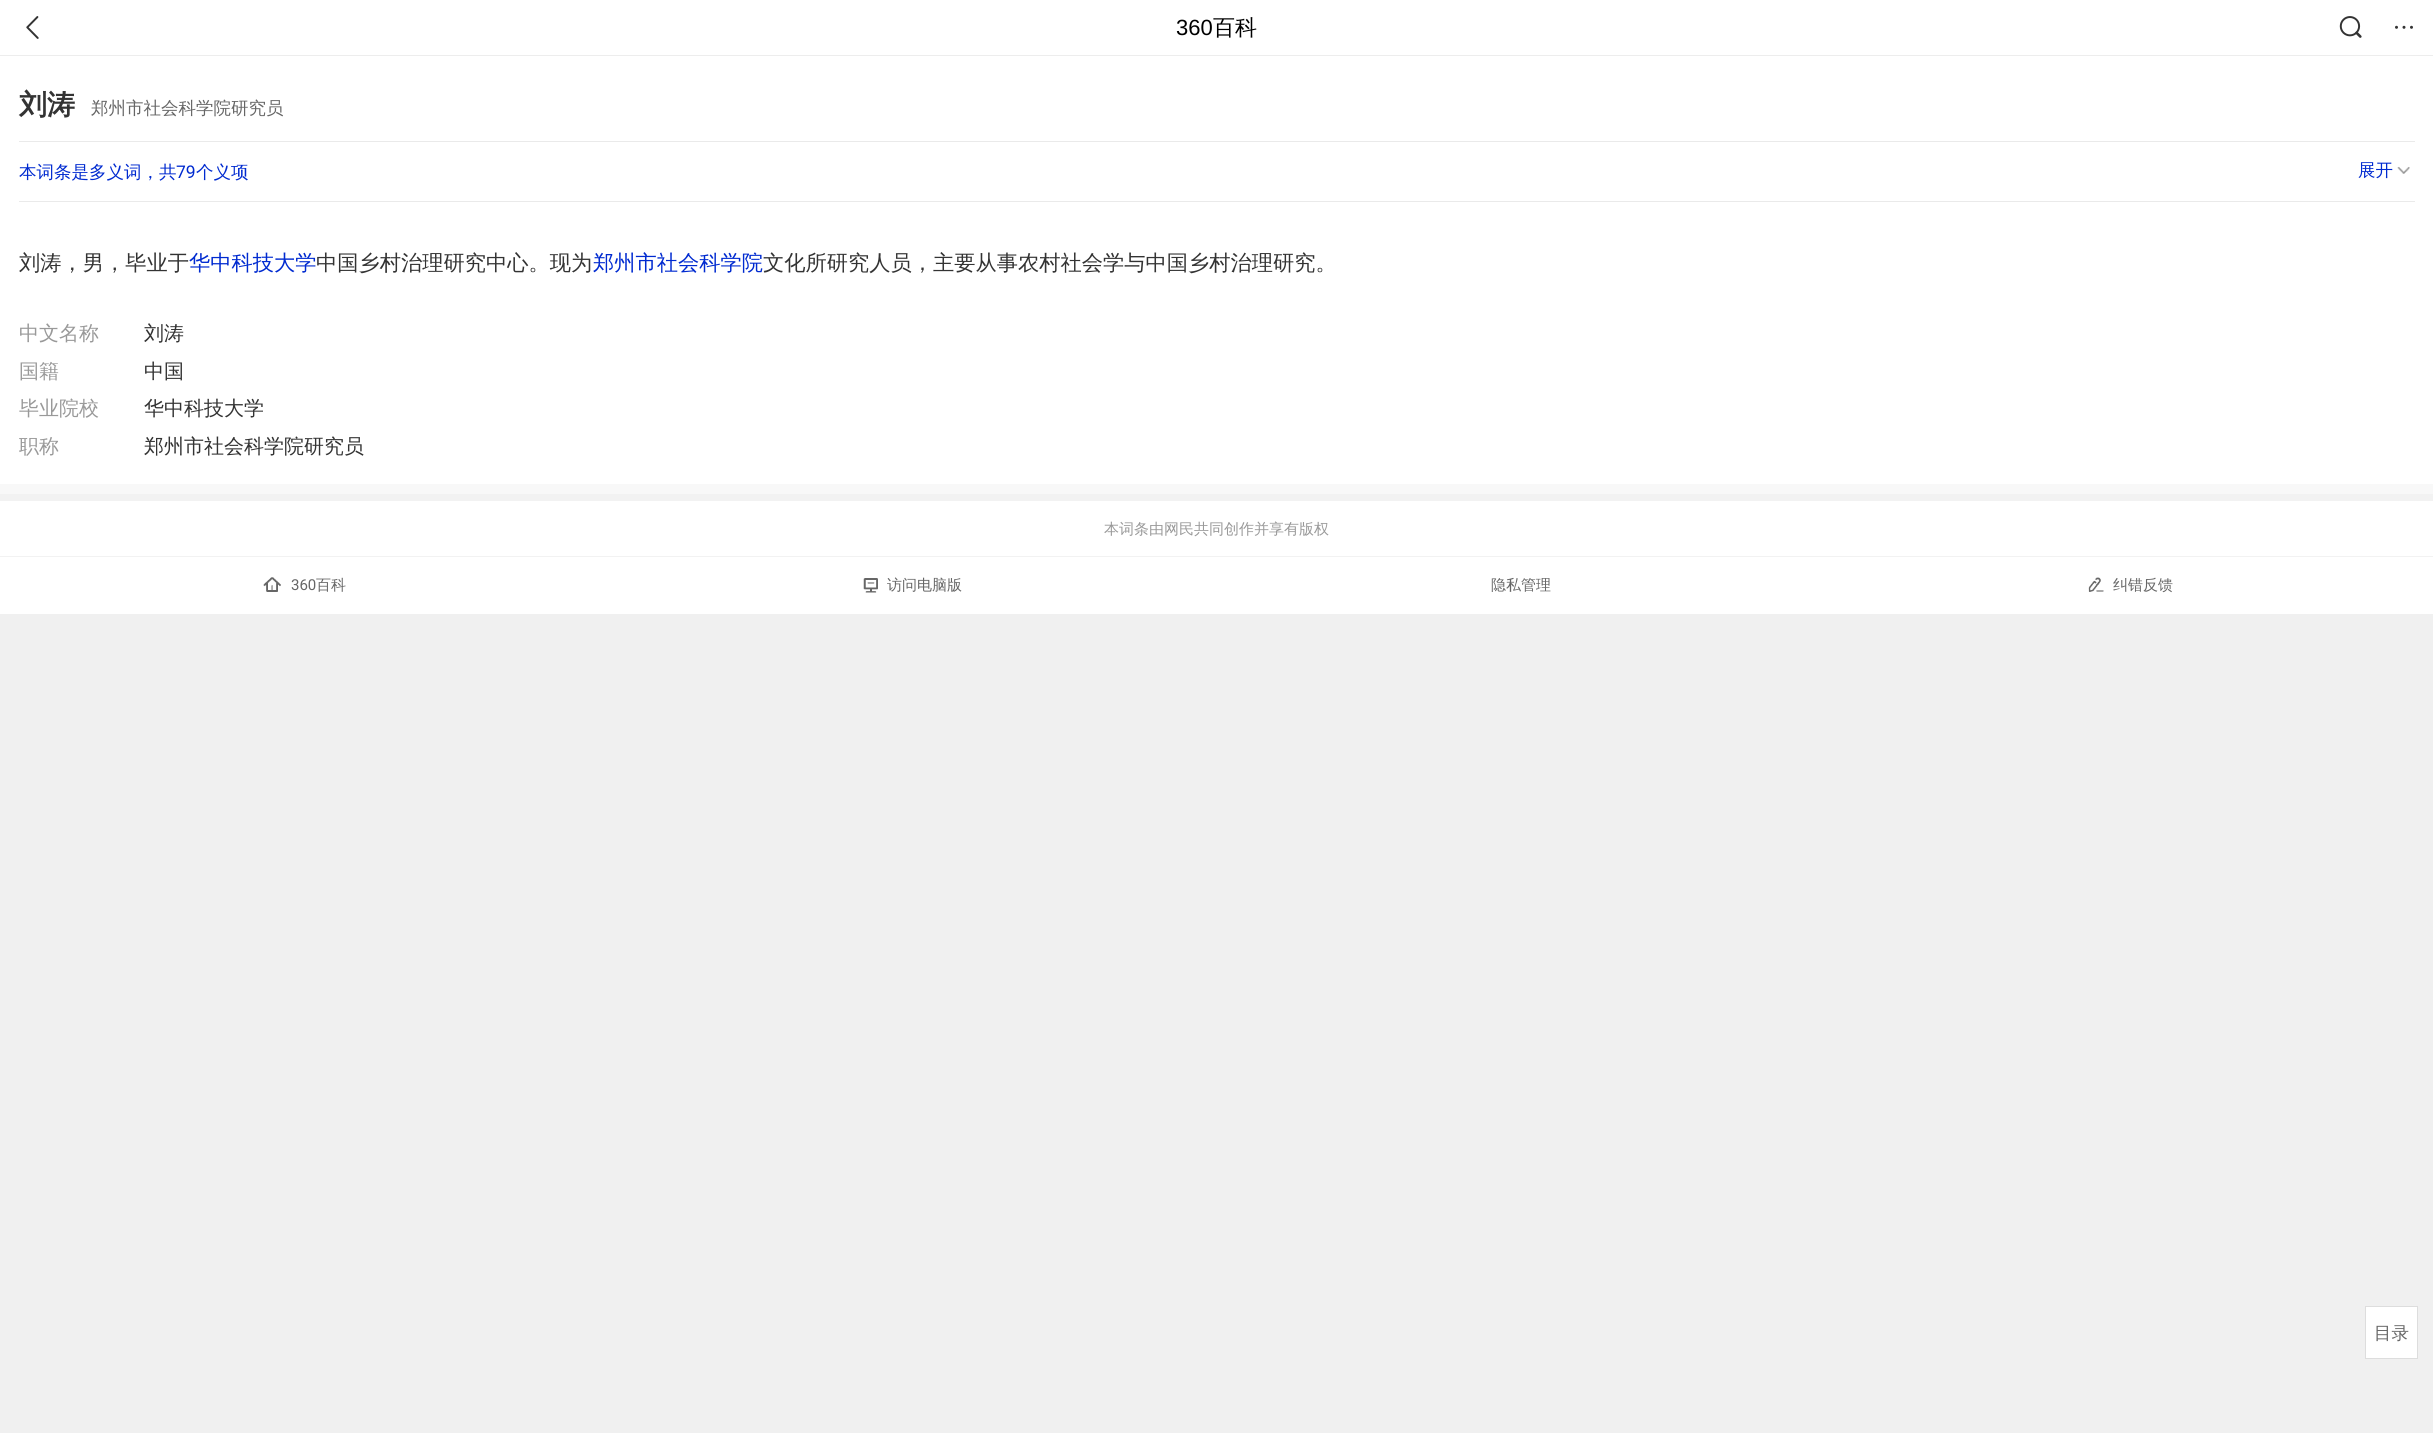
#include <cairo/cairo.h>
#include <math.h>
#include <stddef.h>


static void draw_image(cairo_t *cr, const char *path, double x, double y, double w, double h) {
  cairo_surface_t *image = cairo_image_surface_create_from_png(path);
  cairo_save(cr);
  cairo_set_source_surface(cr, image, x, y);
  cairo_rectangle(cr, x, y, w, h);
  cairo_fill(cr);
  cairo_restore(cr);
  cairo_surface_destroy(image);
}

static void draw(cairo_t *cr) {
  cairo_set_source_rgb(cr, 240 / 255.0, 240 / 255.0, 240 / 255.0);
  cairo_paint(cr);
  cairo_set_source_rgb(cr, 1, 1, 1);
  cairo_rectangle(cr, 0, 56, 2433, 558);
  cairo_fill(cr);
  cairo_rectangle(cr, 0, 0, 2433, 55);
  cairo_fill(cr);
  cairo_set_source_rgb(cr, 237 / 255.0, 237 / 255.0, 237 / 255.0);
  cairo_rectangle(cr, 0, 55, 2433, 1);
  cairo_fill(cr);
  draw_image(cr, "images/1.png", 26, 16, 13, 23);
  draw_image(cr, "images/2.png", 2339, 16, 23, 22);
  cairo_set_source_rgb(cr, 51 / 255.0, 51 / 255.0, 51 / 255.0);
  cairo_arc(cr, 2396.5, 27.3, 1.5, 0, 2 * M_PI);
  cairo_fill(cr);
  cairo_arc(cr, 2404, 27.3, 1.5, 0, 2 * M_PI);
  cairo_fill(cr);
  cairo_arc(cr, 2411.5, 27.3, 1.5, 0, 2 * M_PI);
  cairo_fill(cr);
  cairo_set_source_rgb(cr, 1, 1, 1);
  cairo_rectangle(cr, 2365.5, 1306.5, 52, 52);
  cairo_fill_preserve(cr);
  cairo_set_source_rgb(cr, 221 / 255.0, 221 / 255.0, 221 / 255.0);
  cairo_set_line_width(cr, 1);
  cairo_stroke(cr);
  cairo_set_source_rgb(cr, 234 / 255.0, 234 / 255.0, 234 / 255.0);
  cairo_rectangle(cr, 19, 141, 2396, 1);
  cairo_fill(cr);
  draw_image(cr, "images/3.png", 2397, 166, 13, 8);
  cairo_rectangle(cr, 19, 201, 2396, 1);
  cairo_fill(cr);
  cairo_set_source_rgb(cr, 248 / 255.0, 248 / 255.0, 248 / 255.0);
  cairo_rectangle(cr, 0, 484, 2433, 10);
  cairo_fill(cr);
  cairo_set_source_rgb(cr, 242 / 255.0, 242 / 255.0, 242 / 255.0);
  cairo_rectangle(cr, 0, 494, 2433, 7);
  cairo_fill(cr);
  cairo_rectangle(cr, 0, 556, 2433, 1);
  cairo_fill(cr);
  draw_image(cr, "images/4.png", 263, 577, 18, 15);
  draw_image(cr, "images/5.png", 863, 578, 15, 15);
  draw_image(cr, "images/6.png", 2088, 577, 16, 15);
  cairo_select_font_face(cr, "Liberation Sans", CAIRO_FONT_SLANT_NORMAL, CAIRO_FONT_WEIGHT_NORMAL);
  cairo_set_font_size(cr, 22);
  cairo_set_source_rgb(cr, 0, 0, 0);
  cairo_move_to(cr, 1176, 35);
  cairo_show_text(cr, "360");
  cairo_select_font_face(cr, "WenQuanYi Zen Hei Medium", CAIRO_FONT_SLANT_NORMAL, CAIRO_FONT_WEIGHT_NORMAL);
  cairo_move_to(cr, 1213, 35);
  cairo_show_text(cr, "百科");
  cairo_set_font_size(cr, 17.5);
  cairo_set_source_rgb(cr, 102 / 255.0, 102 / 255.0, 102 / 255.0);
  cairo_move_to(cr, 2374, 1339);
  cairo_show_text(cr, "目录");
  cairo_select_font_face(cr, "WenQuanYi Zen Hei", CAIRO_FONT_SLANT_NORMAL, CAIRO_FONT_WEIGHT_BOLD);
  cairo_set_font_size(cr, 28);
  cairo_set_source_rgb(cr, 51 / 255.0, 51 / 255.0, 51 / 255.0);
  cairo_move_to(cr, 19, 114);
  cairo_show_text(cr, "刘涛");
  cairo_select_font_face(cr, "WenQuanYi Zen Hei Medium", CAIRO_FONT_SLANT_NORMAL, CAIRO_FONT_WEIGHT_NORMAL);
  cairo_set_font_size(cr, 17.5);
  cairo_set_source_rgb(cr, 102 / 255.0, 102 / 255.0, 102 / 255.0);
  cairo_move_to(cr, 91, 114);
  cairo_show_text(cr, "郑州市社会科学院研究员");
  cairo_set_source_rgb(cr, 0, 42 / 255.0, 208 / 255.0);
  cairo_move_to(cr, 19, 178);
  cairo_show_text(cr, "本词条是多义词，共");
  cairo_select_font_face(cr, "Roboto", CAIRO_FONT_SLANT_NORMAL, CAIRO_FONT_WEIGHT_NORMAL);
  cairo_move_to(cr, 176, 178);
  cairo_show_text(cr, "79");
  cairo_select_font_face(cr, "WenQuanYi Zen Hei Medium", CAIRO_FONT_SLANT_NORMAL, CAIRO_FONT_WEIGHT_NORMAL);
  cairo_move_to(cr, 196, 178);
  cairo_show_text(cr, "个义项");
  cairo_move_to(cr, 2358, 176);
  cairo_show_text(cr, "展开");
  cairo_set_font_size(cr, 21.25);
  cairo_set_source_rgb(cr, 51 / 255.0, 51 / 255.0, 51 / 255.0);
  cairo_move_to(cr, 19, 270);
  cairo_show_text(cr, "刘涛，男，毕业于");
  cairo_set_source_rgb(cr, 0, 42 / 255.0, 208 / 255.0);
  cairo_move_to(cr, 189, 270);
  cairo_show_text(cr, "华中科技大学");
  cairo_set_source_rgb(cr, 51 / 255.0, 51 / 255.0, 51 / 255.0);
  cairo_move_to(cr, 316, 270);
  cairo_show_text(cr, "中国乡村治理研究中心。现为");
  cairo_set_source_rgb(cr, 0, 42 / 255.0, 208 / 255.0);
  cairo_move_to(cr, 593, 270);
  cairo_show_text(cr, "郑州市社会科学院");
  cairo_set_source_rgb(cr, 51 / 255.0, 51 / 255.0, 51 / 255.0);
  cairo_move_to(cr, 763, 270);
  cairo_show_text(cr, "文化所研究人员，主要从事农村社会学与中国乡村治理研究。");
  cairo_set_font_size(cr, 20);
  cairo_set_source_rgb(cr, 153 / 255.0, 153 / 255.0, 153 / 255.0);
  cairo_move_to(cr, 19, 340);
  cairo_show_text(cr, "中文名称");
  cairo_set_source_rgb(cr, 51 / 255.0, 51 / 255.0, 51 / 255.0);
  cairo_move_to(cr, 144, 340);
  cairo_show_text(cr, "刘涛");
  cairo_set_source_rgb(cr, 153 / 255.0, 153 / 255.0, 153 / 255.0);
  cairo_move_to(cr, 19, 378);
  cairo_show_text(cr, "国籍");
  cairo_set_source_rgb(cr, 51 / 255.0, 51 / 255.0, 51 / 255.0);
  cairo_move_to(cr, 144, 378);
  cairo_show_text(cr, "中国");
  cairo_set_source_rgb(cr, 153 / 255.0, 153 / 255.0, 153 / 255.0);
  cairo_move_to(cr, 19, 415);
  cairo_show_text(cr, "毕业院校");
  cairo_set_source_rgb(cr, 51 / 255.0, 51 / 255.0, 51 / 255.0);
  cairo_move_to(cr, 144, 415);
  cairo_show_text(cr, "华中科技大学");
  cairo_set_source_rgb(cr, 153 / 255.0, 153 / 255.0, 153 / 255.0);
  cairo_move_to(cr, 19, 453);
  cairo_show_text(cr, "职称");
  cairo_set_source_rgb(cr, 51 / 255.0, 51 / 255.0, 51 / 255.0);
  cairo_move_to(cr, 144, 453);
  cairo_show_text(cr, "郑州市社会科学院研究员");
  cairo_set_font_size(cr, 15);
  cairo_set_source_rgb(cr, 153 / 255.0, 153 / 255.0, 153 / 255.0);
  cairo_move_to(cr, 1104, 534);
  cairo_show_text(cr, "本词条由网民共同创作并享有版权");
  cairo_select_font_face(cr, "Roboto", CAIRO_FONT_SLANT_NORMAL, CAIRO_FONT_WEIGHT_NORMAL);
  cairo_set_source_rgb(cr, 102 / 255.0, 102 / 255.0, 102 / 255.0);
  cairo_move_to(cr, 291, 590);
  cairo_show_text(cr, "360");
  cairo_select_font_face(cr, "WenQuanYi Zen Hei Medium", CAIRO_FONT_SLANT_NORMAL, CAIRO_FONT_WEIGHT_NORMAL);
  cairo_move_to(cr, 316, 590);
  cairo_show_text(cr, "百科");
  cairo_move_to(cr, 887, 590);
  cairo_show_text(cr, "访问电脑版");
  cairo_move_to(cr, 1491, 590);
  cairo_show_text(cr, "隐私管理");
  cairo_move_to(cr, 2113, 590);
  cairo_show_text(cr, "纠错反馈");
}

int main(void) {
  cairo_surface_t *surface = cairo_image_surface_create(CAIRO_FORMAT_RGB24, 2433, 1433);
  cairo_t *cr = cairo_create(surface);
  cairo_font_options_t *options = cairo_font_options_create();
  cairo_font_options_set_hint_metrics(options, CAIRO_HINT_METRICS_OFF);
  cairo_font_options_set_hint_style(options, CAIRO_HINT_STYLE_NONE);
  cairo_set_font_options(cr, options);
  cairo_set_miter_limit(cr, 4);
  draw(cr);
  cairo_surface_write_to_png(surface, "out.png");
  cairo_font_options_destroy(options);
  cairo_destroy(cr);
  cairo_surface_destroy(surface);
  return 0;
}
